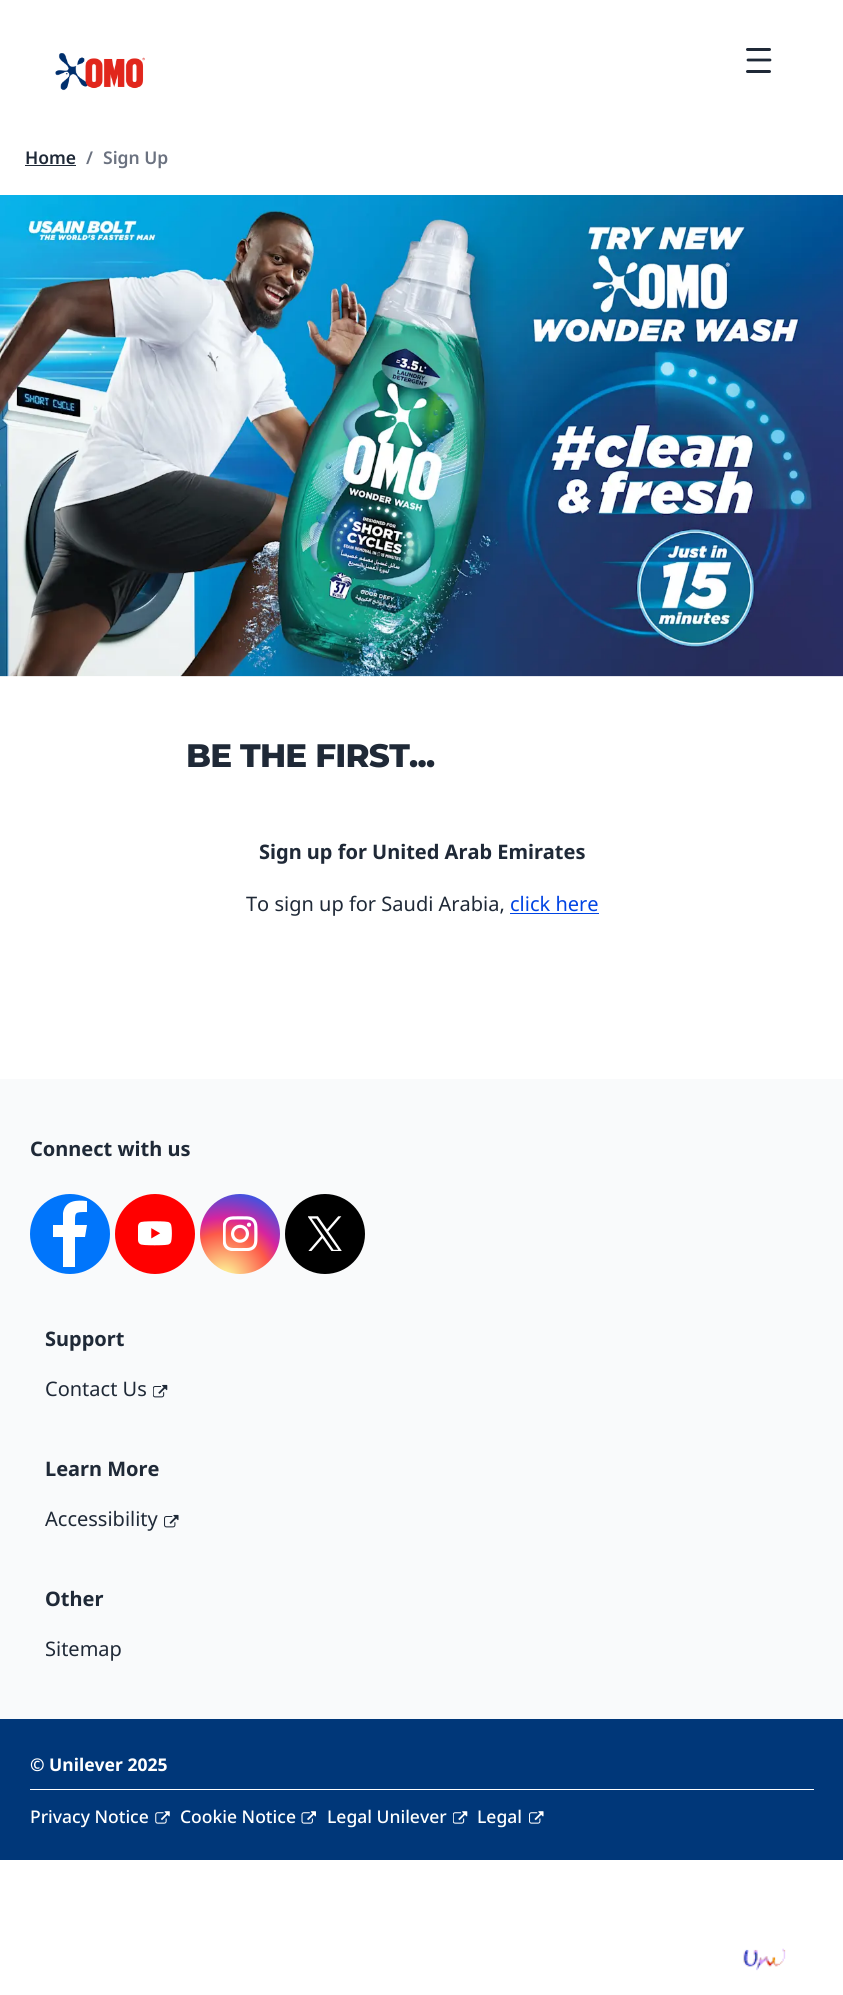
#include <cairo/cairo.h>
#include <math.h>
#include <stddef.h>


static void draw_spaced(cairo_t *cr, double x, double y, const char *s, double letter, double word) {
  cairo_move_to(cr, x, y);
  while (*s) {
    char ch[5] = {0};
    int n = 0;
    do ch[n++] = *s++; while ((*s & 0xC0) == 0x80);
    cairo_show_text(cr, ch);
    cairo_rel_move_to(cr, letter + word * (*ch == ' '), 0);
  }
}

static void rounded_rect(cairo_t *cr, double x, double y, double w, double h, double r) {
  cairo_new_sub_path(cr);
  cairo_arc(cr, x + w - r, y + h - r, r, 0, M_PI / 2);
  cairo_arc(cr, x + r, y + h - r, r, M_PI / 2, M_PI);
  cairo_arc(cr, x + r, y + r, r, M_PI, 1.5 * M_PI);
  cairo_arc(cr, x + w - r, y + r, r, 1.5 * M_PI, 2 * M_PI);
  cairo_close_path(cr);
}

static void draw_image(cairo_t *cr, const char *path, double x, double y, double w, double h) {
  cairo_surface_t *image = cairo_image_surface_create_from_png(path);
  cairo_save(cr);
  cairo_set_source_surface(cr, image, x, y);
  cairo_rectangle(cr, x, y, w, h);
  cairo_fill(cr);
  cairo_restore(cr);
  cairo_surface_destroy(image);
}

static void draw(cairo_t *cr) {
  cairo_pattern_t *gradient;
  cairo_set_source_rgb(cr, 1, 1, 1);
  cairo_paint(cr);
  draw_image(cr, "images/1.png", 55, 53, 90, 38);
  cairo_set_source_rgb(cr, 31 / 255.0, 41 / 255.0, 55 / 255.0);
  rounded_rect(cr, 746, 48, 25, 3, 1.5);
  cairo_fill(cr);
  cairo_new_path(cr);
  cairo_move_to(cr, 748, 60);
  cairo_line_to(cr, 770, 60);
  cairo_set_line_width(cr, 2.8);
  cairo_set_line_cap(cr, CAIRO_LINE_CAP_ROUND);
  cairo_stroke(cr);
  rounded_rect(cr, 746, 70, 25, 3, 1.5);
  cairo_fill(cr);
  cairo_rectangle(cr, 25, 165, 51, 1);
  cairo_fill(cr);
  draw_image(cr, "images/2.png", 0, 195, 843, 482);
  cairo_set_source_rgb(cr, 0, 68 / 255.0, 227 / 255.0);
  cairo_rectangle(cr, 510, 913, 89, 1);
  cairo_fill(cr);
  cairo_set_source_rgb(cr, 249 / 255.0, 250 / 255.0, 251 / 255.0);
  cairo_rectangle(cr, 0, 1079, 843, 640);
  cairo_fill(cr);
  cairo_set_source_rgb(cr, 0, 117 / 255.0, 251 / 255.0);
  cairo_arc(cr, 70, 1234, 40, 0, 2 * M_PI);
  cairo_fill(cr);
  cairo_save(cr);
  cairo_rectangle(cr, 53, 1199, 35, 70);
  cairo_clip(cr);
  cairo_set_source_rgb(cr, 1, 1, 1);
  cairo_new_path(cr);
  cairo_move_to(cr, 75, 1267);
  cairo_line_to(cr, 75, 1237);
  cairo_line_to(cr, 85, 1237);
  cairo_line_to(cr, 87, 1225);
  cairo_line_to(cr, 75, 1225);
  cairo_curve_to(cr, 75, 1212, 74, 1212, 87, 1212);
  cairo_line_to(cr, 87, 1201);
  cairo_curve_to(cr, 77, 1200, 65, 1200, 63, 1213);
  cairo_line_to(cr, 63, 1225);
  cairo_line_to(cr, 52, 1225);
  cairo_line_to(cr, 52, 1237);
  cairo_line_to(cr, 63, 1237);
  cairo_line_to(cr, 63, 1267);
  cairo_close_path(cr);
  cairo_fill(cr);
  cairo_restore(cr);
  cairo_set_source_rgb(cr, 1, 0, 0);
  cairo_arc(cr, 155, 1234, 40, 0, 2 * M_PI);
  cairo_fill(cr);
  draw_image(cr, "images/3.png", 138, 1221, 34, 25);
  gradient = cairo_pattern_create_radial(224, 1279, 0, 224, 1279, 102);
  cairo_pattern_add_color_stop_rgba(gradient, 0, 253 / 255.0, 244 / 255.0, 151 / 255.0, 1);
  cairo_pattern_add_color_stop_rgba(gradient, 0.05, 253 / 255.0, 244 / 255.0, 151 / 255.0, 1);
  cairo_pattern_add_color_stop_rgba(gradient, 0.45, 253 / 255.0, 89 / 255.0, 73 / 255.0, 1);
  cairo_pattern_add_color_stop_rgba(gradient, 0.6, 214 / 255.0, 36 / 255.0, 159 / 255.0, 1);
  cairo_pattern_add_color_stop_rgba(gradient, 0.9, 40 / 255.0, 90 / 255.0, 235 / 255.0, 1);
  cairo_set_source(cr, gradient);
  cairo_pattern_destroy(gradient);
  cairo_arc(cr, 240, 1234, 40, 0, 2 * M_PI);
  cairo_fill(cr);
  draw_image(cr, "images/4.png", 223, 1216, 35, 35);
  cairo_set_source_rgb(cr, 0, 0, 0);
  cairo_arc(cr, 325, 1234, 40, 0, 2 * M_PI);
  cairo_fill(cr);
  draw_image(cr, "images/5.png", 308, 1216, 34, 35);
  draw_image(cr, "images/6.png", 153, 1384, 15, 14);
  draw_image(cr, "images/7.png", 164, 1514, 15, 14);
  cairo_set_source_rgb(cr, 0, 55 / 255.0, 121 / 255.0);
  cairo_rectangle(cr, 0, 1719, 843, 141);
  cairo_fill(cr);
  cairo_set_source_rgb(cr, 1, 1, 1);
  cairo_rectangle(cr, 30, 1789, 784, 1);
  cairo_fill(cr);
  draw_image(cr, "images/8.png", 155, 1811, 15, 13);
  draw_image(cr, "images/9.png", 301, 1811, 15, 13);
  draw_image(cr, "images/10.png", 453, 1811, 15, 13);
  draw_image(cr, "images/11.png", 529, 1811, 15, 13);
  draw_image(cr, "images/12.png", 743, 1948, 43, 23);
  cairo_select_font_face(cr, "Noto Sans SemiBold", CAIRO_FONT_SLANT_NORMAL, CAIRO_FONT_WEIGHT_NORMAL);
  cairo_set_font_size(cr, 17.5);
  cairo_set_source_rgb(cr, 31 / 255.0, 41 / 255.0, 55 / 255.0);
  cairo_move_to(cr, 25, 164);
  cairo_show_text(cr, "Home");
  cairo_set_source_rgb(cr, 107 / 255.0, 114 / 255.0, 128 / 255.0);
  cairo_move_to(cr, 86, 164);
  cairo_show_text(cr, "/");
  cairo_move_to(cr, 103, 164);
  cairo_show_text(cr, "Sign Up");
  cairo_select_font_face(cr, "Montserrat Thin", CAIRO_FONT_SLANT_NORMAL, CAIRO_FONT_WEIGHT_NORMAL);
  cairo_set_font_size(cr, 32.5);
  cairo_set_source_rgb(cr, 31 / 255.0, 41 / 255.0, 55 / 255.0);
  draw_spaced(cr, 186, 767, "BE THE FIRST...", -0.75, 0);
  cairo_select_font_face(cr, "Noto Sans", CAIRO_FONT_SLANT_NORMAL, CAIRO_FONT_WEIGHT_BOLD);
  cairo_set_font_size(cr, 20);
  cairo_move_to(cr, 259, 859);
  cairo_show_text(cr, "Sign up for United Arab Emirates");
  cairo_select_font_face(cr, "Noto Sans", CAIRO_FONT_SLANT_NORMAL, CAIRO_FONT_WEIGHT_NORMAL);
  cairo_move_to(cr, 246, 911);
  cairo_show_text(cr, "To sign up for Saudi Arabia,");
  cairo_set_source_rgb(cr, 0, 68 / 255.0, 227 / 255.0);
  cairo_move_to(cr, 510, 911);
  cairo_show_text(cr, "click here");
  cairo_select_font_face(cr, "Noto Sans", CAIRO_FONT_SLANT_NORMAL, CAIRO_FONT_WEIGHT_BOLD);
  cairo_set_source_rgb(cr, 31 / 255.0, 41 / 255.0, 55 / 255.0);
  cairo_move_to(cr, 30, 1156);
  cairo_show_text(cr, "Connect with us");
  cairo_move_to(cr, 45, 1346);
  cairo_show_text(cr, "Support");
  cairo_select_font_face(cr, "Noto Sans", CAIRO_FONT_SLANT_NORMAL, CAIRO_FONT_WEIGHT_NORMAL);
  cairo_move_to(cr, 45, 1396);
  cairo_show_text(cr, "Contact Us");
  cairo_select_font_face(cr, "Noto Sans", CAIRO_FONT_SLANT_NORMAL, CAIRO_FONT_WEIGHT_BOLD);
  cairo_move_to(cr, 45, 1476);
  cairo_show_text(cr, "Learn More");
  cairo_select_font_face(cr, "Noto Sans", CAIRO_FONT_SLANT_NORMAL, CAIRO_FONT_WEIGHT_NORMAL);
  cairo_move_to(cr, 45, 1526);
  cairo_show_text(cr, "Accessibility");
  cairo_select_font_face(cr, "Noto Sans", CAIRO_FONT_SLANT_NORMAL, CAIRO_FONT_WEIGHT_BOLD);
  cairo_move_to(cr, 45, 1606);
  cairo_show_text(cr, "Other");
  cairo_select_font_face(cr, "Noto Sans", CAIRO_FONT_SLANT_NORMAL, CAIRO_FONT_WEIGHT_NORMAL);
  cairo_move_to(cr, 45, 1656);
  cairo_show_text(cr, "Sitemap");
  cairo_select_font_face(cr, "Noto Sans", CAIRO_FONT_SLANT_NORMAL, CAIRO_FONT_WEIGHT_BOLD);
  cairo_set_font_size(cr, 17.5);
  cairo_set_source_rgb(cr, 1, 1, 1);
  cairo_move_to(cr, 30, 1771);
  cairo_show_text(cr, "© Unilever 2025");
  cairo_select_font_face(cr, "Noto Sans Medium", CAIRO_FONT_SLANT_NORMAL, CAIRO_FONT_WEIGHT_NORMAL);
  cairo_move_to(cr, 30, 1823);
  cairo_show_text(cr, "Privacy Notice");
  cairo_move_to(cr, 180, 1823);
  cairo_show_text(cr, "Cookie Notice");
  cairo_move_to(cr, 327, 1823);
  cairo_show_text(cr, "Legal Unilever");
  cairo_move_to(cr, 477, 1823);
  cairo_show_text(cr, "Legal");
}

int main(void) {
  cairo_surface_t *surface = cairo_image_surface_create(CAIRO_FORMAT_RGB24, 843, 1995);
  cairo_t *cr = cairo_create(surface);
  cairo_font_options_t *options = cairo_font_options_create();
  cairo_font_options_set_hint_metrics(options, CAIRO_HINT_METRICS_OFF);
  cairo_font_options_set_hint_style(options, CAIRO_HINT_STYLE_NONE);
  cairo_set_font_options(cr, options);
  cairo_set_miter_limit(cr, 4);
  draw(cr);
  cairo_surface_write_to_png(surface, "out.png");
  cairo_font_options_destroy(options);
  cairo_destroy(cr);
  cairo_surface_destroy(surface);
  return 0;
}
